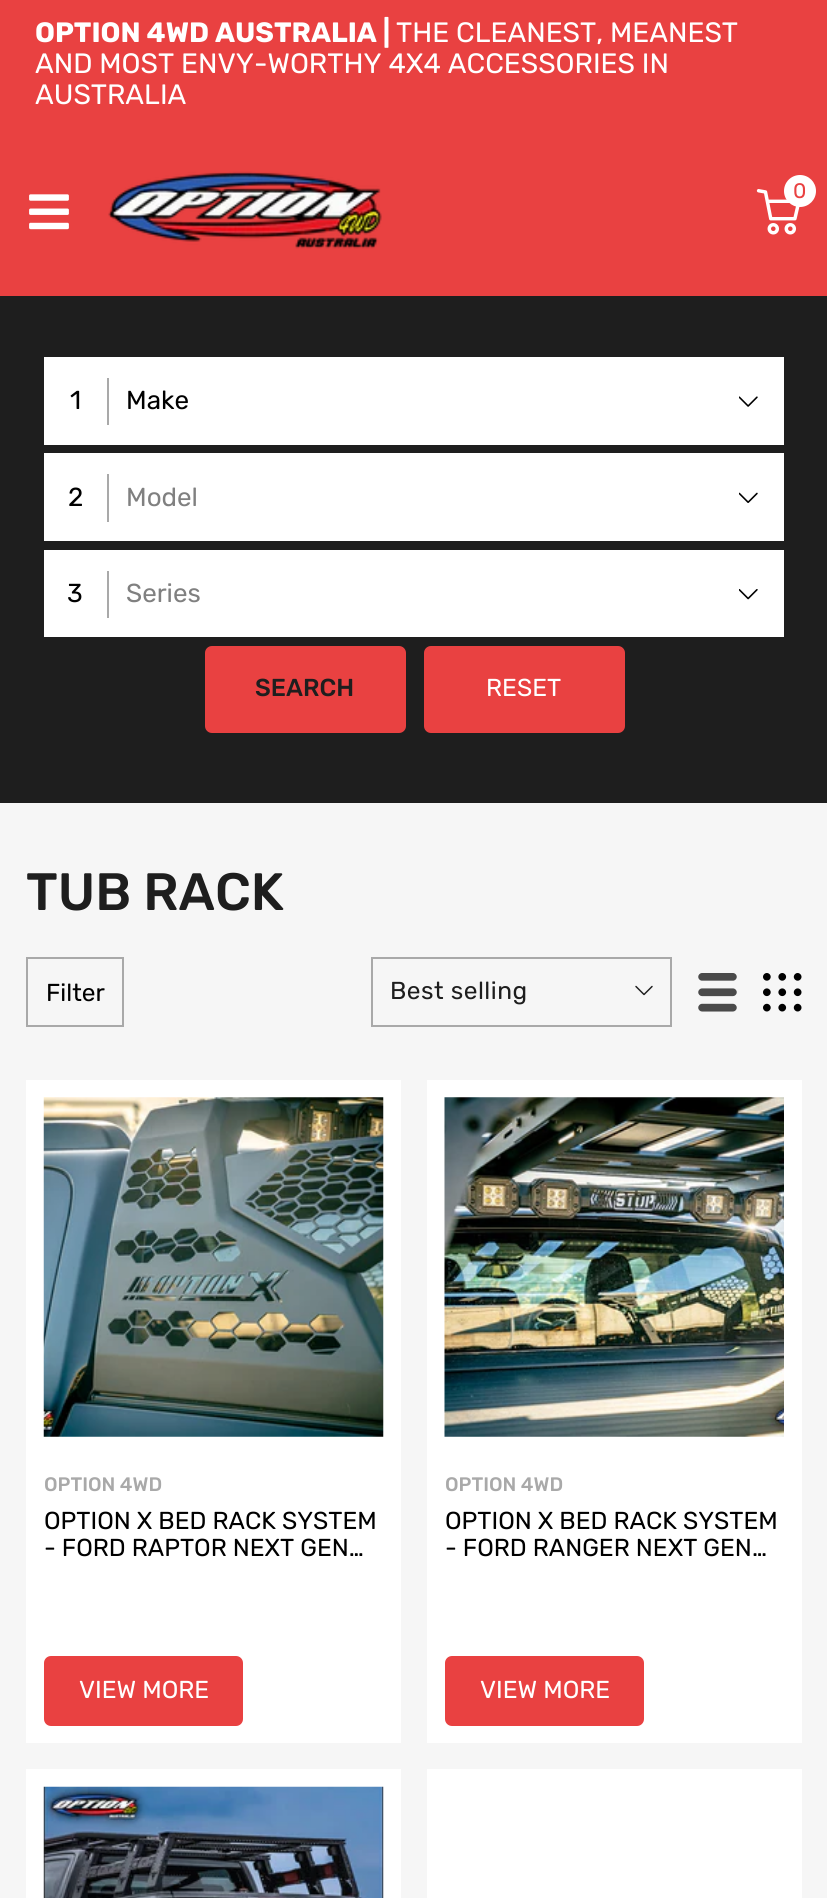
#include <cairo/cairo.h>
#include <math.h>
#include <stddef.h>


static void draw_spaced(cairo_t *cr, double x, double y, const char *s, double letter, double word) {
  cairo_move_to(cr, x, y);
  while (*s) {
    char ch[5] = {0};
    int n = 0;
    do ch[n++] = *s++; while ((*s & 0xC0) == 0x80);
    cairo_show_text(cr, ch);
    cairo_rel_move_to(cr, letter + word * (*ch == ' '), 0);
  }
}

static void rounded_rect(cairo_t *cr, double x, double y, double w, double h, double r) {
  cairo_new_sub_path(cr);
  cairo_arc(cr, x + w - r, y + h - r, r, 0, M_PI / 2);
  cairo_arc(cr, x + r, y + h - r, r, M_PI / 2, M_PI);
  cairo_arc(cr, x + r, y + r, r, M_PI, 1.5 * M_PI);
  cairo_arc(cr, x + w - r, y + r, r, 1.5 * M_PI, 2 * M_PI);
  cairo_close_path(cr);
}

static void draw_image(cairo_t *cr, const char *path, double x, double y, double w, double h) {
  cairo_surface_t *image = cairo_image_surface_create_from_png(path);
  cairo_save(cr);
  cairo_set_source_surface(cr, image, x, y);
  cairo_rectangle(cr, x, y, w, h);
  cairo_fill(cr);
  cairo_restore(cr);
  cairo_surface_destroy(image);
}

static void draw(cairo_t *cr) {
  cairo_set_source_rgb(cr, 246 / 255.0, 246 / 255.0, 246 / 255.0);
  cairo_paint(cr);
  cairo_set_source_rgb(cr, 233 / 255.0, 65 / 255.0, 65 / 255.0);
  cairo_rectangle(cr, 0, 0, 827, 296);
  cairo_fill(cr);
  draw_image(cr, "images/1.png", 108, 171, 274, 78);
  draw_image(cr, "images/2.png", 756, 189, 44, 46);
  cairo_set_source_rgb(cr, 1, 1, 1);
  cairo_arc(cr, 800, 191, 16, 0, 2 * M_PI);
  cairo_fill(cr);
  draw_image(cr, "images/3.png", 29, 194, 40, 36);
  cairo_set_source_rgb(cr, 30 / 255.0, 30 / 255.0, 30 / 255.0);
  cairo_rectangle(cr, 0, 296, 827, 507);
  cairo_fill(cr);
  cairo_set_source_rgb(cr, 1, 1, 1);
  cairo_rectangle(cr, 44, 357, 740, 88);
  cairo_fill(cr);
  cairo_set_source_rgb(cr, 169 / 255.0, 169 / 255.0, 169 / 255.0);
  cairo_rectangle(cr, 107, 378, 2, 47);
  cairo_fill(cr);
  draw_image(cr, "images/4.png", 739, 396, 19, 11);
  cairo_set_source_rgb(cr, 1, 1, 1);
  cairo_rectangle(cr, 44, 453, 740, 88);
  cairo_fill(cr);
  cairo_set_source_rgb(cr, 169 / 255.0, 169 / 255.0, 169 / 255.0);
  cairo_rectangle(cr, 107, 474, 2, 48);
  cairo_fill(cr);
  draw_image(cr, "images/5.png", 739, 492, 19, 11);
  cairo_set_source_rgb(cr, 1, 1, 1);
  cairo_rectangle(cr, 44, 550, 740, 87);
  cairo_fill(cr);
  cairo_set_source_rgb(cr, 169 / 255.0, 169 / 255.0, 169 / 255.0);
  cairo_rectangle(cr, 107, 571, 2, 47);
  cairo_fill(cr);
  draw_image(cr, "images/6.png", 739, 589, 19, 11);
  cairo_set_source_rgb(cr, 233 / 255.0, 65 / 255.0, 65 / 255.0);
  rounded_rect(cr, 205, 646, 201, 87, 7);
  cairo_fill(cr);
  rounded_rect(cr, 424, 646, 201, 87, 7);
  cairo_fill(cr);
  cairo_rectangle(cr, 27, 958, 96, 68);
  cairo_set_source_rgb(cr, 169 / 255.0, 169 / 255.0, 169 / 255.0);
  cairo_stroke(cr);
  cairo_rectangle(cr, 372, 958, 299, 68);
  cairo_stroke(cr);
  draw_image(cr, "images/7.png", 635, 985, 18, 11);
  draw_image(cr, "images/8.png", 698, 973, 39, 39);
  draw_image(cr, "images/9.png", 763, 973, 39, 39);
  cairo_set_source_rgb(cr, 1, 1, 1);
  cairo_rectangle(cr, 26, 1080, 375, 663);
  cairo_fill(cr);
  draw_image(cr, "images/10.png", 43, 1097, 341, 340);
  cairo_set_source_rgb(cr, 233 / 255.0, 65 / 255.0, 65 / 255.0);
  rounded_rect(cr, 44, 1656, 199, 70, 7);
  cairo_fill(cr);
  cairo_set_source_rgb(cr, 1, 1, 1);
  cairo_rectangle(cr, 427, 1080, 375, 663);
  cairo_fill(cr);
  draw_image(cr, "images/11.png", 444, 1097, 340, 340);
  cairo_set_source_rgb(cr, 233 / 255.0, 65 / 255.0, 65 / 255.0);
  rounded_rect(cr, 445, 1656, 199, 70, 7);
  cairo_fill(cr);
  cairo_set_source_rgb(cr, 1, 1, 1);
  cairo_rectangle(cr, 26, 1769, 375, 129);
  cairo_fill(cr);
  draw_image(cr, "images/12.png", 43, 1786, 341, 112);
  cairo_rectangle(cr, 427, 1769, 375, 129);
  cairo_fill(cr);
  cairo_select_font_face(cr, "Rubik", CAIRO_FONT_SLANT_NORMAL, CAIRO_FONT_WEIGHT_BOLD);
  cairo_set_font_size(cr, 28);
  cairo_move_to(cr, 35, 42);
  cairo_show_text(cr, "OPTION 4WD AUSTRALIA |");
  cairo_select_font_face(cr, "Rubik", CAIRO_FONT_SLANT_NORMAL, CAIRO_FONT_WEIGHT_NORMAL);
  cairo_move_to(cr, 396, 42);
  cairo_show_text(cr, "THE CLEANEST, MEANEST");
  cairo_move_to(cr, 35, 73);
  cairo_show_text(cr, "AND MOST ENVY-WORTHY 4X4 ACCESSORIES IN");
  cairo_move_to(cr, 35, 104);
  cairo_show_text(cr, "AUSTRALIA");
  cairo_set_font_size(cr, 21);
  cairo_set_source_rgb(cr, 233 / 255.0, 65 / 255.0, 65 / 255.0);
  cairo_move_to(cr, 793, 198);
  cairo_show_text(cr, "0");
  cairo_set_font_size(cr, 26);
  cairo_set_source_rgb(cr, 0, 0, 0);
  cairo_move_to(cr, 70, 409);
  cairo_show_text(cr, "1");
  cairo_move_to(cr, 126, 409);
  cairo_show_text(cr, "Make");
  cairo_move_to(cr, 68, 506);
  cairo_show_text(cr, "2");
  cairo_set_source_rgb(cr, 128 / 255.0, 128 / 255.0, 128 / 255.0);
  cairo_move_to(cr, 126, 506);
  cairo_show_text(cr, "Model");
  cairo_set_source_rgb(cr, 0, 0, 0);
  cairo_move_to(cr, 67, 602);
  cairo_show_text(cr, "3");
  cairo_set_source_rgb(cr, 128 / 255.0, 128 / 255.0, 128 / 255.0);
  cairo_move_to(cr, 126, 602);
  cairo_show_text(cr, "Series");
  cairo_select_font_face(cr, "Rubik Medium", CAIRO_FONT_SLANT_NORMAL, CAIRO_FONT_WEIGHT_NORMAL);
  cairo_set_font_size(cr, 24.5);
  cairo_set_source_rgb(cr, 30 / 255.0, 30 / 255.0, 30 / 255.0);
  cairo_move_to(cr, 255, 696);
  cairo_show_text(cr, "SEARCH");
  cairo_select_font_face(cr, "Rubik", CAIRO_FONT_SLANT_NORMAL, CAIRO_FONT_WEIGHT_NORMAL);
  cairo_set_source_rgb(cr, 1, 1, 1);
  cairo_move_to(cr, 486, 696);
  cairo_show_text(cr, "RESET");
  cairo_select_font_face(cr, "Rubik Medium", CAIRO_FONT_SLANT_NORMAL, CAIRO_FONT_WEIGHT_NORMAL);
  cairo_set_font_size(cr, 52.5);
  cairo_set_source_rgb(cr, 30 / 255.0, 30 / 255.0, 30 / 255.0);
  cairo_move_to(cr, 26, 910);
  cairo_show_text(cr, "TUB RACK");
  cairo_select_font_face(cr, "Rubik", CAIRO_FONT_SLANT_NORMAL, CAIRO_FONT_WEIGHT_NORMAL);
  cairo_set_font_size(cr, 24.5);
  cairo_set_source_rgb(cr, 0, 0, 0);
  cairo_move_to(cr, 46, 1001);
  cairo_show_text(cr, "Filter");
  cairo_set_source_rgb(cr, 30 / 255.0, 30 / 255.0, 30 / 255.0);
  draw_spaced(cr, 390, 999, "Best selling", 0.5, 0);
  cairo_select_font_face(cr, "Rubik Medium", CAIRO_FONT_SLANT_NORMAL, CAIRO_FONT_WEIGHT_NORMAL);
  cairo_set_font_size(cr, 19.5);
  cairo_set_source_rgb(cr, 169 / 255.0, 169 / 255.0, 169 / 255.0);
  cairo_move_to(cr, 44, 1491);
  cairo_show_text(cr, "OPTION 4WD");
  cairo_select_font_face(cr, "Rubik", CAIRO_FONT_SLANT_NORMAL, CAIRO_FONT_WEIGHT_NORMAL);
  cairo_set_font_size(cr, 24.5);
  cairo_set_source_rgb(cr, 0, 0, 0);
  cairo_move_to(cr, 44, 1529);
  cairo_show_text(cr, "OPTION X BED RACK SYSTEM");
  cairo_move_to(cr, 44, 1556);
  cairo_show_text(cr, "- FORD RAPTOR NEXT GEN…");
  cairo_set_source_rgb(cr, 1, 1, 1);
  cairo_move_to(cr, 79, 1698);
  cairo_show_text(cr, "VIEW MORE");
  cairo_select_font_face(cr, "Rubik Medium", CAIRO_FONT_SLANT_NORMAL, CAIRO_FONT_WEIGHT_NORMAL);
  cairo_set_font_size(cr, 19.5);
  cairo_set_source_rgb(cr, 169 / 255.0, 169 / 255.0, 169 / 255.0);
  cairo_move_to(cr, 445, 1491);
  cairo_show_text(cr, "OPTION 4WD");
  cairo_select_font_face(cr, "Rubik", CAIRO_FONT_SLANT_NORMAL, CAIRO_FONT_WEIGHT_NORMAL);
  cairo_set_font_size(cr, 24.5);
  cairo_set_source_rgb(cr, 0, 0, 0);
  cairo_move_to(cr, 445, 1529);
  cairo_show_text(cr, "OPTION X BED RACK SYSTEM");
  cairo_move_to(cr, 445, 1556);
  cairo_show_text(cr, "- FORD RANGER NEXT GEN…");
  cairo_set_source_rgb(cr, 1, 1, 1);
  cairo_move_to(cr, 480, 1698);
  cairo_show_text(cr, "VIEW MORE");
}

int main(void) {
  cairo_surface_t *surface = cairo_image_surface_create(CAIRO_FORMAT_RGB24, 827, 1898);
  cairo_t *cr = cairo_create(surface);
  cairo_font_options_t *options = cairo_font_options_create();
  cairo_font_options_set_hint_metrics(options, CAIRO_HINT_METRICS_OFF);
  cairo_font_options_set_hint_style(options, CAIRO_HINT_STYLE_NONE);
  cairo_set_font_options(cr, options);
  cairo_set_miter_limit(cr, 4);
  draw(cr);
  cairo_surface_write_to_png(surface, "out.png");
  cairo_font_options_destroy(options);
  cairo_destroy(cr);
  cairo_surface_destroy(surface);
  return 0;
}
